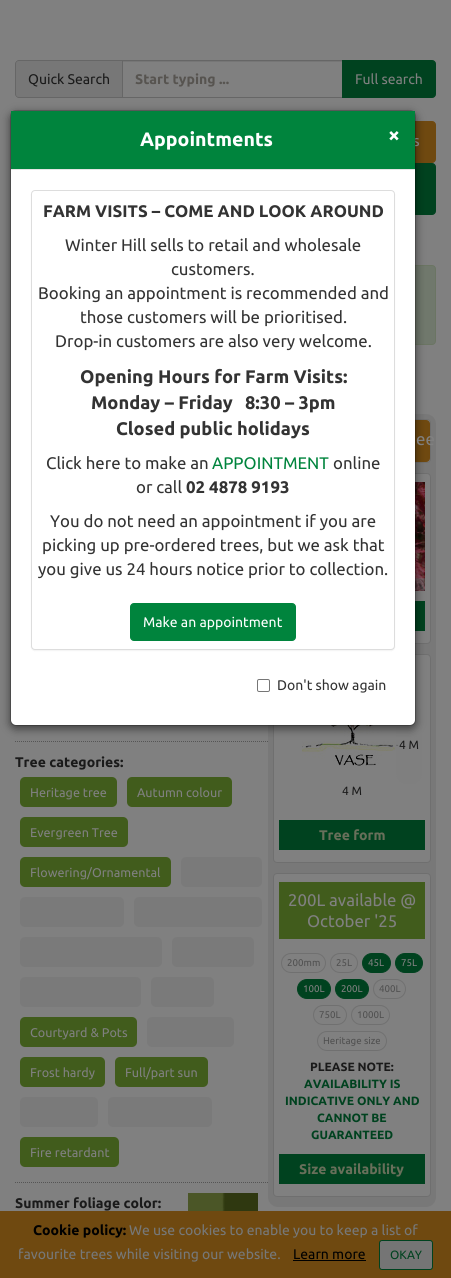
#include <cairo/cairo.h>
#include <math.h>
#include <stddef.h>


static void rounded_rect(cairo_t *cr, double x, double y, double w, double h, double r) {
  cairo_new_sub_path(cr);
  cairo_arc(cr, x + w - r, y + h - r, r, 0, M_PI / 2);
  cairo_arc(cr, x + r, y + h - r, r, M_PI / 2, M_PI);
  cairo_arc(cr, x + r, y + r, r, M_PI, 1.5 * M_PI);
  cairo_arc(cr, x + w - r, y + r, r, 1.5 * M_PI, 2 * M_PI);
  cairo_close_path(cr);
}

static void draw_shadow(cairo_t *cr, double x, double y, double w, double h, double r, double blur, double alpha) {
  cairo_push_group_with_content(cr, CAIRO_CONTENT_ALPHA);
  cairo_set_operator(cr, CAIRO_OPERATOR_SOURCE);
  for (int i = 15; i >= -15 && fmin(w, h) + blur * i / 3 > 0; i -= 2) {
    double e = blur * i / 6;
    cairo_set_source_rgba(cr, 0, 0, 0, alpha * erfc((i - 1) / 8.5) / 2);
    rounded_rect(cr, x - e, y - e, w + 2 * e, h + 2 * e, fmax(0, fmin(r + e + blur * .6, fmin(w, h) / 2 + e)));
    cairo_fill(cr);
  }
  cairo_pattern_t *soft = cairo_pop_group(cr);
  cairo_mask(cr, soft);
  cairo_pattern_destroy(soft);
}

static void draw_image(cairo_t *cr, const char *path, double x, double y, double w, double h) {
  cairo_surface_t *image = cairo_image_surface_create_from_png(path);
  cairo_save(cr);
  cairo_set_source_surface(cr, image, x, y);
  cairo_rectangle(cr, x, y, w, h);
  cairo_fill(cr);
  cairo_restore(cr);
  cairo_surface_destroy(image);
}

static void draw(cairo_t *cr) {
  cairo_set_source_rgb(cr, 128 / 255.0, 128 / 255.0, 128 / 255.0);
  cairo_paint(cr);
  cairo_set_source_rgb(cr, 119 / 255.0, 119 / 255.0, 119 / 255.0);
  cairo_new_path(cr);
  cairo_move_to(cr, 19, 60);
  cairo_line_to(cr, 122, 60);
  cairo_line_to(cr, 122, 98);
  cairo_line_to(cr, 19, 98);
  cairo_curve_to(cr, 17, 98, 15, 96, 15, 94);
  cairo_line_to(cr, 15, 64);
  cairo_curve_to(cr, 15, 62, 17, 60, 19, 60);
  cairo_close_path(cr);
  cairo_fill(cr);
  cairo_set_source_rgb(cr, 102 / 255.0, 102 / 255.0, 102 / 255.0);
  cairo_set_fill_rule(cr, CAIRO_FILL_RULE_EVEN_ODD);
  cairo_new_path(cr);
  cairo_move_to(cr, 19, 60);
  cairo_line_to(cr, 122, 60);
  cairo_line_to(cr, 122, 98);
  cairo_line_to(cr, 19, 98);
  cairo_curve_to(cr, 17, 98, 15, 96, 15, 94);
  cairo_line_to(cr, 15, 64);
  cairo_curve_to(cr, 15, 62, 17, 60, 19, 60);
  cairo_close_path(cr);
  cairo_move_to(cr, 19, 61);
  cairo_line_to(cr, 122, 61);
  cairo_line_to(cr, 122, 97);
  cairo_line_to(cr, 19, 97);
  cairo_curve_to(cr, 17, 97, 16, 96, 16, 94);
  cairo_line_to(cr, 16, 64);
  cairo_curve_to(cr, 16, 62, 17, 61, 19, 61);
  cairo_close_path(cr);
  cairo_fill(cr);
  cairo_set_source_rgb(cr, 118 / 255.0, 118 / 255.0, 118 / 255.0);
  cairo_rectangle(cr, 123, 61, 219, 1);
  cairo_fill(cr);
  cairo_rectangle(cr, 122.5, 60.5, 220, 37);
  cairo_set_source_rgb(cr, 102 / 255.0, 102 / 255.0, 102 / 255.0);
  cairo_set_line_width(cr, 1);
  cairo_stroke(cr);
  cairo_set_source_rgb(cr, 0, 66 / 255.0, 31 / 255.0);
  cairo_new_path(cr);
  cairo_move_to(cr, 342.5, 60.5);
  cairo_line_to(cr, 432, 60.5);
  cairo_curve_to(cr, 434, 60.5, 435.5, 62, 435.5, 64);
  cairo_line_to(cr, 435.5, 94);
  cairo_curve_to(cr, 435.5, 96, 434, 97.5, 432, 97.5);
  cairo_line_to(cr, 342.5, 97.5);
  cairo_close_path(cr);
  cairo_fill_preserve(cr);
  cairo_stroke(cr);
  cairo_set_source_rgb(cr, 111 / 255.0, 73 / 255.0, 16 / 255.0);
  rounded_rect(cr, 203.5, 121.5, 232, 41, 3.5);
  cairo_fill_preserve(cr);
  cairo_stroke(cr);
  cairo_set_source_rgb(cr, 0, 66 / 255.0, 31 / 255.0);
  rounded_rect(cr, 15.5, 163.5, 420, 51, 3.5);
  cairo_fill_preserve(cr);
  cairo_stroke(cr);
  cairo_set_source_rgb(cr, 112 / 255.0, 120 / 255.0, 108 / 255.0);
  rounded_rect(cr, 15.5, 265.5, 420, 79, 3.5);
  cairo_fill_preserve(cr);
  cairo_set_source_rgb(cr, 107 / 255.0, 117 / 255.0, 99 / 255.0);
  cairo_stroke(cr);
  cairo_new_path(cr);
  cairo_move_to(cr, 15, 741.5);
  cairo_line_to(cr, 268, 741.5);
  cairo_set_source_rgb(cr, 85 / 255.0, 85 / 255.0, 85 / 255.0);
  cairo_set_dash(cr, (double[]){1, 1}, 2, 0);
  cairo_stroke(cr);
  cairo_set_source_rgb(cr, 120 / 255.0, 120 / 255.0, 120 / 255.0);
  rounded_rect(cr, 268, 414, 168, 793, 10);
  cairo_fill(cr);
  cairo_set_source_rgb(cr, 128 / 255.0, 128 / 255.0, 128 / 255.0);
  rounded_rect(cr, 273.5, 419.5, 157, 43, 3.5);
  cairo_fill_preserve(cr);
  cairo_set_source_rgb(cr, 111 / 255.0, 111 / 255.0, 111 / 255.0);
  cairo_set_dash(cr, NULL, 0, 0);
  cairo_stroke(cr);
  cairo_set_source_rgb(cr, 111 / 255.0, 73 / 255.0, 16 / 255.0);
  rounded_rect(cr, 274.5, 420.5, 155, 41, 3.5);
  cairo_fill_preserve(cr);
  cairo_stroke(cr);
  cairo_set_source_rgb(cr, 128 / 255.0, 128 / 255.0, 128 / 255.0);
  rounded_rect(cr, 273.5, 473.5, 157, 170, 3.5);
  cairo_fill_preserve(cr);
  cairo_set_source_rgb(cr, 111 / 255.0, 111 / 255.0, 111 / 255.0);
  cairo_stroke(cr);
  draw_image(cr, "images/2.png", 415, 482, 10, 109);
  cairo_set_source_rgb(cr, 0, 66 / 255.0, 31 / 255.0);
  cairo_rectangle(cr, 415, 601, 10, 30);
  cairo_fill(cr);
  cairo_set_source_rgb(cr, 128 / 255.0, 128 / 255.0, 128 / 255.0);
  rounded_rect(cr, 273.5, 654.5, 157, 208, 3.5);
  cairo_fill_preserve(cr);
  cairo_set_source_rgb(cr, 111 / 255.0, 111 / 255.0, 111 / 255.0);
  cairo_stroke(cr);
  draw_image(cr, "images/3.png", 302, 725, 99, 41);
  cairo_set_source_rgba(cr, 128 / 255.0, 128 / 255.0, 128 / 255.0, 0.7);
  rounded_rect(cr, 396, 704, 26, 80, 10);
  cairo_fill(cr);
  cairo_set_source_rgb(cr, 0, 0, 0);
  draw_shadow(cr, 10, 113, 406, 616, 6, 4.5, 0.5);
  cairo_set_source_rgb(cr, 65 / 255.0, 92 / 255.0, 28 / 255.0);
  rounded_rect(cr, 20, 777, 97, 30, 5);
  cairo_fill(cr);
  rounded_rect(cr, 127, 777, 105, 30, 5);
  cairo_fill(cr);
  rounded_rect(cr, 20, 817, 108, 30, 5);
  cairo_fill(cr);
  rounded_rect(cr, 20, 857, 151, 30, 5);
  cairo_fill(cr);
  cairo_set_source_rgb(cr, 122 / 255.0, 122 / 255.0, 122 / 255.0);
  rounded_rect(cr, 181, 857, 81, 30, 5);
  cairo_fill(cr);
  rounded_rect(cr, 20, 897, 104, 30, 5);
  cairo_fill(cr);
  rounded_rect(cr, 134, 897, 128, 30, 5);
  cairo_fill(cr);
  rounded_rect(cr, 20, 937, 142, 30, 5);
  cairo_fill(cr);
  rounded_rect(cr, 172, 937, 82, 30, 5);
  cairo_fill(cr);
  rounded_rect(cr, 20, 977, 121, 30, 5);
  cairo_fill(cr);
  rounded_rect(cr, 151, 977, 63, 30, 5);
  cairo_fill(cr);
  cairo_set_source_rgb(cr, 65 / 255.0, 92 / 255.0, 28 / 255.0);
  rounded_rect(cr, 20, 1017, 117, 30, 5);
  cairo_fill(cr);
  cairo_set_source_rgb(cr, 122 / 255.0, 122 / 255.0, 122 / 255.0);
  rounded_rect(cr, 147, 1017, 87, 30, 5);
  cairo_fill(cr);
  cairo_set_source_rgb(cr, 65 / 255.0, 92 / 255.0, 28 / 255.0);
  rounded_rect(cr, 20, 1057, 85, 30, 5);
  cairo_fill(cr);
  rounded_rect(cr, 115, 1057, 93, 30, 5);
  cairo_fill(cr);
  cairo_set_source_rgb(cr, 122 / 255.0, 122 / 255.0, 122 / 255.0);
  rounded_rect(cr, 20, 1097, 78, 30, 5);
  cairo_fill(cr);
  rounded_rect(cr, 108, 1097, 104, 30, 5);
  cairo_fill(cr);
  cairo_set_source_rgb(cr, 65 / 255.0, 92 / 255.0, 28 / 255.0);
  rounded_rect(cr, 20, 1137, 99, 30, 5);
  cairo_fill(cr);
  cairo_new_path(cr);
  cairo_move_to(cr, 15, 1182.5);
  cairo_line_to(cr, 268, 1182.5);
  cairo_set_source_rgb(cr, 85 / 255.0, 85 / 255.0, 85 / 255.0);
  cairo_set_dash(cr, (double[]){1, 1}, 2, 0);
  cairo_stroke(cr);
  draw_image(cr, "images/1.png", 188, 1193, 70, 18);
  cairo_set_source_rgb(cr, 0, 66 / 255.0, 31 / 255.0);
  cairo_rectangle(cr, 279, 820, 146, 30);
  cairo_fill(cr);
  cairo_set_source_rgb(cr, 128 / 255.0, 128 / 255.0, 128 / 255.0);
  rounded_rect(cr, 273.5, 873.5, 157, 323, 3.5);
  cairo_fill_preserve(cr);
  cairo_set_source_rgb(cr, 111 / 255.0, 111 / 255.0, 111 / 255.0);
  cairo_set_dash(cr, NULL, 0, 0);
  cairo_stroke(cr);
  cairo_set_source_rgb(cr, 65 / 255.0, 92 / 255.0, 28 / 255.0);
  cairo_rectangle(cr, 279, 882, 146, 57);
  cairo_fill(cr);
  rounded_rect(cr, 281.5, 953.5, 44, 19, 9.5);
  cairo_set_source_rgb(cr, 112 / 255.0, 112 / 255.0, 112 / 255.0);
  cairo_stroke(cr);
  rounded_rect(cr, 330.5, 953.5, 27, 19, 9.5);
  cairo_stroke(cr);
  cairo_set_source_rgb(cr, 0, 66 / 255.0, 31 / 255.0);
  rounded_rect(cr, 362.5, 953.5, 28, 19, 9.5);
  cairo_fill_preserve(cr);
  cairo_stroke(cr);
  rounded_rect(cr, 395.5, 953.5, 27, 19, 9.5);
  cairo_fill_preserve(cr);
  cairo_stroke(cr);
  rounded_rect(cr, 297.5, 979.5, 33, 19, 9.5);
  cairo_fill_preserve(cr);
  cairo_stroke(cr);
  rounded_rect(cr, 335.5, 979.5, 33, 19, 9.5);
  cairo_fill_preserve(cr);
  cairo_stroke(cr);
  rounded_rect(cr, 373.5, 979.5, 32, 19, 9.5);
  cairo_set_source_rgb(cr, 112 / 255.0, 112 / 255.0, 112 / 255.0);
  cairo_stroke(cr);
  rounded_rect(cr, 313.5, 1005.5, 33, 19, 9.5);
  cairo_stroke(cr);
  rounded_rect(cr, 351.5, 1005.5, 38, 19, 9.5);
  cairo_stroke(cr);
  rounded_rect(cr, 317.5, 1031.5, 69, 19, 9.5);
  cairo_stroke(cr);
  cairo_set_source_rgb(cr, 0, 66 / 255.0, 31 / 255.0);
  cairo_rectangle(cr, 279, 1154, 146, 30);
  cairo_fill(cr);
  cairo_set_source_rgb(cr, 111 / 255.0, 73 / 255.0, 16 / 255.0);
  cairo_rectangle(cr, 0, 1211, 451, 67);
  cairo_fill(cr);
  cairo_set_source_rgb(cr, 0, 0, 0);
  cairo_rectangle(cr, 293, 1260, 73, 1);
  cairo_fill(cr);
  cairo_set_source_rgb(cr, 117 / 255.0, 117 / 255.0, 117 / 255.0);
  rounded_rect(cr, 379.5, 1240.5, 53, 29, 2.5);
  cairo_fill_preserve(cr);
  cairo_set_source_rgb(cr, 0, 66 / 255.0, 31 / 255.0);
  cairo_stroke(cr);
  cairo_select_font_face(cr, "Ubuntu", CAIRO_FONT_SLANT_NORMAL, CAIRO_FONT_WEIGHT_NORMAL);
  cairo_set_font_size(cr, 14);
  cairo_set_source_rgb(cr, 26 / 255.0, 26 / 255.0, 26 / 255.0);
  cairo_move_to(cr, 28, 84);
  cairo_show_text(cr, "Quick Search");
  cairo_select_font_face(cr, "Ubuntu", CAIRO_FONT_SLANT_NORMAL, CAIRO_FONT_WEIGHT_BOLD);
  cairo_set_source_rgb(cr, 87 / 255.0, 84 / 255.0, 80 / 255.0);
  cairo_move_to(cr, 135, 84);
  cairo_show_text(cr, "Start typing ...");
  cairo_select_font_face(cr, "Ubuntu", CAIRO_FONT_SLANT_NORMAL, CAIRO_FONT_WEIGHT_NORMAL);
  cairo_set_source_rgb(cr, 128 / 255.0, 128 / 255.0, 128 / 255.0);
  cairo_move_to(cr, 355, 84);
  cairo_show_text(cr, "Full search");
  cairo_set_font_size(cr, 15);
  cairo_move_to(cr, 413, 146);
  cairo_show_text(cr, "s");
  cairo_set_source_rgb(cr, 1, 1, 1);
  rounded_rect(cr, 11, 111, 404, 614, 5);
  cairo_fill(cr);
  rounded_rect(cr, 10.5, 110.5, 405, 615, 5.5);
  cairo_set_source_rgba(cr, 0, 0, 0, 0.2);
  cairo_stroke(cr);
  cairo_set_source_rgb(cr, 0, 132 / 255.0, 61 / 255.0);
  cairo_rectangle(cr, 11, 111, 404, 58);
  cairo_fill(cr);
  cairo_set_source_rgb(cr, 229 / 255.0, 229 / 255.0, 229 / 255.0);
  cairo_rectangle(cr, 11, 169, 404, 1);
  cairo_fill(cr);
  cairo_select_font_face(cr, "Ubuntu", CAIRO_FONT_SLANT_NORMAL, CAIRO_FONT_WEIGHT_BOLD);
  cairo_set_font_size(cr, 19.5);
  cairo_set_source_rgb(cr, 1, 1, 1);
  cairo_move_to(cr, 140, 146);
  cairo_show_text(cr, "Appointments");
  cairo_set_font_size(cr, 21);
  cairo_move_to(cr, 388, 142);
  cairo_show_text(cr, "×");
  cairo_set_source_rgb(cr, 0, 0, 0);
  draw_shadow(cr, 31, 191, 364, 460, 4, 0.5, 0.05);
  cairo_set_source_rgb(cr, 1, 1, 1);
  rounded_rect(cr, 31.5, 190.5, 363, 459, 3.5);
  cairo_fill_preserve(cr);
  cairo_set_source_rgb(cr, 221 / 255.0, 221 / 255.0, 221 / 255.0);
  cairo_stroke(cr);
  cairo_set_font_size(cr, 16.8);
  cairo_set_source_rgb(cr, 51 / 255.0, 51 / 255.0, 51 / 255.0);
  cairo_move_to(cr, 43, 217);
  cairo_show_text(cr, "FARM VISITS – COME AND LOOK AROUND");
  cairo_select_font_face(cr, "Ubuntu", CAIRO_FONT_SLANT_NORMAL, CAIRO_FONT_WEIGHT_NORMAL);
  cairo_move_to(cr, 65, 251);
  cairo_show_text(cr, "Winter Hill sells to retail and wholesale");
  cairo_move_to(cr, 171, 275);
  cairo_show_text(cr, "customers.");
  cairo_move_to(cr, 38, 299);
  cairo_show_text(cr, "Booking an appointment is recommended and");
  cairo_move_to(cr, 80, 323);
  cairo_show_text(cr, "those customers will be prioritised.");
  cairo_move_to(cr, 55, 347);
  cairo_show_text(cr, "Drop-in customers are also very welcome.");
  cairo_select_font_face(cr, "Ubuntu", CAIRO_FONT_SLANT_NORMAL, CAIRO_FONT_WEIGHT_BOLD);
  cairo_set_font_size(cr, 18.25);
  cairo_move_to(cr, 80, 383);
  cairo_show_text(cr, "Opening Hours for Farm Visits:");
  cairo_move_to(cr, 91, 409);
  cairo_show_text(cr, "Monday – Friday");
  cairo_move_to(cr, 245, 409);
  cairo_show_text(cr, "8:30 – 3pm");
  cairo_move_to(cr, 116, 435);
  cairo_show_text(cr, "Closed public holidays");
  cairo_select_font_face(cr, "Ubuntu", CAIRO_FONT_SLANT_NORMAL, CAIRO_FONT_WEIGHT_NORMAL);
  cairo_set_font_size(cr, 16.8);
  cairo_move_to(cr, 46, 469);
  cairo_show_text(cr, "Click here to make an");
  cairo_set_source_rgb(cr, 0, 132 / 255.0, 61 / 255.0);
  cairo_move_to(cr, 212, 469);
  cairo_show_text(cr, "APPOINTMENT");
  cairo_set_source_rgb(cr, 51 / 255.0, 51 / 255.0, 51 / 255.0);
  cairo_move_to(cr, 333, 469);
  cairo_show_text(cr, "online");
  cairo_move_to(cr, 136, 493);
  cairo_show_text(cr, "or call");
  cairo_select_font_face(cr, "Ubuntu", CAIRO_FONT_SLANT_NORMAL, CAIRO_FONT_WEIGHT_BOLD);
  cairo_move_to(cr, 186, 493);
  cairo_show_text(cr, "02 4878 9193");
  cairo_select_font_face(cr, "Ubuntu", CAIRO_FONT_SLANT_NORMAL, CAIRO_FONT_WEIGHT_NORMAL);
  cairo_move_to(cr, 50, 527);
  cairo_show_text(cr, "You do not need an appointment if you are");
  cairo_move_to(cr, 42, 551);
  cairo_show_text(cr, "picking up pre-ordered trees, but we ask that");
  cairo_move_to(cr, 38, 575);
  cairo_show_text(cr, "you give us 24 hours notice prior to collection.");
  cairo_set_source_rgb(cr, 0, 132 / 255.0, 61 / 255.0);
  rounded_rect(cr, 130.5, 603.5, 165, 37, 3.5);
  cairo_fill_preserve(cr);
  cairo_stroke(cr);
  cairo_set_font_size(cr, 14);
  cairo_set_source_rgb(cr, 1, 1, 1);
  cairo_move_to(cr, 143, 627);
  cairo_show_text(cr, "Make an appointment");
  rounded_rect(cr, 257.5, 679.5, 12, 12, 1.5);
  cairo_set_source_rgb(cr, 118 / 255.0, 118 / 255.0, 118 / 255.0);
  cairo_stroke(cr);
  cairo_set_source_rgb(cr, 51 / 255.0, 51 / 255.0, 51 / 255.0);
  cairo_move_to(cr, 277, 690);
  cairo_show_text(cr, "Don't show again");
  cairo_select_font_face(cr, "Ubuntu", CAIRO_FONT_SLANT_NORMAL, CAIRO_FONT_WEIGHT_BOLD);
  cairo_set_source_rgb(cr, 26 / 255.0, 26 / 255.0, 26 / 255.0);
  cairo_move_to(cr, 15, 767);
  cairo_show_text(cr, "Tree categories:");
  cairo_select_font_face(cr, "Ubuntu", CAIRO_FONT_SLANT_NORMAL, CAIRO_FONT_WEIGHT_NORMAL);
  cairo_set_font_size(cr, 12.6);
  cairo_set_source_rgb(cr, 128 / 255.0, 128 / 255.0, 128 / 255.0);
  cairo_move_to(cr, 30, 797);
  cairo_show_text(cr, "Heritage tree");
  cairo_move_to(cr, 137, 797);
  cairo_show_text(cr, "Autumn colour");
  cairo_move_to(cr, 30, 837);
  cairo_show_text(cr, "Evergreen Tree");
  cairo_move_to(cr, 30, 877);
  cairo_show_text(cr, "Flowering/Ornamental");
  cairo_move_to(cr, 30, 1037);
  cairo_show_text(cr, "Courtyard & Pots");
  cairo_move_to(cr, 30, 1077);
  cairo_show_text(cr, "Frost hardy");
  cairo_move_to(cr, 125, 1077);
  cairo_show_text(cr, "Full/part sun");
  cairo_move_to(cr, 30, 1157);
  cairo_show_text(cr, "Fire retardant");
  cairo_select_font_face(cr, "Ubuntu", CAIRO_FONT_SLANT_NORMAL, CAIRO_FONT_WEIGHT_BOLD);
  cairo_set_font_size(cr, 14);
  cairo_set_source_rgb(cr, 26 / 255.0, 26 / 255.0, 26 / 255.0);
  cairo_move_to(cr, 15, 1208);
  cairo_show_text(cr, "Summer foliage color:");
  cairo_select_font_face(cr, "Ubuntu", CAIRO_FONT_SLANT_NORMAL, CAIRO_FONT_WEIGHT_NORMAL);
  cairo_set_font_size(cr, 16.8);
  cairo_set_source_rgb(cr, 128 / 255.0, 128 / 255.0, 128 / 255.0);
  cairo_move_to(cr, 416, 445);
  cairo_show_text(cr, "ee");
  cairo_set_font_size(cr, 12);
  cairo_set_source_rgb(cr, 26 / 255.0, 26 / 255.0, 26 / 255.0);
  cairo_move_to(cr, 399, 749);
  cairo_show_text(cr, "4 M");
  cairo_move_to(cr, 342, 795);
  cairo_show_text(cr, "4 M");
  cairo_select_font_face(cr, "Ubuntu", CAIRO_FONT_SLANT_NORMAL, CAIRO_FONT_WEIGHT_BOLD);
  cairo_set_font_size(cr, 14);
  cairo_set_source_rgb(cr, 104 / 255.0, 111 / 255.0, 90 / 255.0);
  cairo_move_to(cr, 319, 840);
  cairo_show_text(cr, "Tree form");
  cairo_select_font_face(cr, "Ubuntu", CAIRO_FONT_SLANT_NORMAL, CAIRO_FONT_WEIGHT_NORMAL);
  cairo_set_font_size(cr, 16.8);
  cairo_set_source_rgb(cr, 128 / 255.0, 128 / 255.0, 128 / 255.0);
  cairo_move_to(cr, 288, 906);
  cairo_show_text(cr, "200L available @");
  cairo_move_to(cr, 307, 927);
  cairo_show_text(cr, "October '25");
  cairo_set_font_size(cr, 9.75);
  cairo_set_source_rgb(cr, 80 / 255.0, 80 / 255.0, 80 / 255.0);
  cairo_move_to(cr, 287, 966);
  cairo_show_text(cr, "200mm");
  cairo_move_to(cr, 336, 966);
  cairo_show_text(cr, "25L");
  cairo_set_source_rgb(cr, 128 / 255.0, 128 / 255.0, 128 / 255.0);
  cairo_move_to(cr, 368, 966);
  cairo_show_text(cr, "45L");
  cairo_move_to(cr, 401, 966);
  cairo_show_text(cr, "75L");
  cairo_move_to(cr, 303, 992);
  cairo_show_text(cr, "100L");
  cairo_move_to(cr, 341, 992);
  cairo_show_text(cr, "200L");
  cairo_set_source_rgb(cr, 80 / 255.0, 80 / 255.0, 80 / 255.0);
  cairo_move_to(cr, 379, 992);
  cairo_show_text(cr, "400L");
  cairo_move_to(cr, 319, 1018);
  cairo_show_text(cr, "750L");
  cairo_move_to(cr, 357, 1018);
  cairo_show_text(cr, "1000L");
  cairo_move_to(cr, 323, 1044);
  cairo_show_text(cr, "Heritage size");
  cairo_select_font_face(cr, "Ubuntu", CAIRO_FONT_SLANT_NORMAL, CAIRO_FONT_WEIGHT_BOLD);
  cairo_set_font_size(cr, 12);
  cairo_set_source_rgb(cr, 26 / 255.0, 26 / 255.0, 26 / 255.0);
  cairo_move_to(cr, 310, 1071);
  cairo_show_text(cr, "PLEASE NOTE:");
  cairo_set_source_rgb(cr, 0, 66 / 255.0, 31 / 255.0);
  cairo_move_to(cr, 304, 1088);
  cairo_show_text(cr, "AVAILABILITY IS");
  cairo_move_to(cr, 285, 1105);
  cairo_show_text(cr, "INDICATIVE ONLY AND");
  cairo_move_to(cr, 317, 1122);
  cairo_show_text(cr, "CANNOT BE");
  cairo_move_to(cr, 311, 1139);
  cairo_show_text(cr, "GUARANTEED");
  cairo_set_font_size(cr, 14);
  cairo_set_source_rgb(cr, 104 / 255.0, 111 / 255.0, 90 / 255.0);
  cairo_move_to(cr, 299, 1174);
  cairo_show_text(cr, "Size availability");
  cairo_set_source_rgb(cr, 0, 0, 0);
  cairo_move_to(cr, 33, 1235);
  cairo_show_text(cr, "Cookie policy:");
  cairo_select_font_face(cr, "Ubuntu", CAIRO_FONT_SLANT_NORMAL, CAIRO_FONT_WEIGHT_NORMAL);
  cairo_set_source_rgb(cr, 118 / 255.0, 120 / 255.0, 121 / 255.0);
  cairo_move_to(cr, 129, 1235);
  cairo_show_text(cr, "We use cookies to enable you to keep a list of");
  cairo_move_to(cr, 18, 1259);
  cairo_show_text(cr, "favourite trees while visiting our website.");
  cairo_set_source_rgb(cr, 0, 0, 0);
  cairo_move_to(cr, 293, 1259);
  cairo_show_text(cr, "Learn more");
  cairo_set_font_size(cr, 12);
  cairo_set_source_rgb(cr, 0, 66 / 255.0, 31 / 255.0);
  cairo_move_to(cr, 390, 1259);
  cairo_show_text(cr, "OKAY");
}

int main(void) {
  cairo_surface_t *surface = cairo_image_surface_create(CAIRO_FORMAT_RGB24, 451, 1278);
  cairo_t *cr = cairo_create(surface);
  cairo_font_options_t *options = cairo_font_options_create();
  cairo_font_options_set_hint_metrics(options, CAIRO_HINT_METRICS_OFF);
  cairo_font_options_set_hint_style(options, CAIRO_HINT_STYLE_NONE);
  cairo_set_font_options(cr, options);
  cairo_set_miter_limit(cr, 4);
  draw(cr);
  cairo_surface_write_to_png(surface, "out.png");
  cairo_font_options_destroy(options);
  cairo_destroy(cr);
  cairo_surface_destroy(surface);
  return 0;
}
